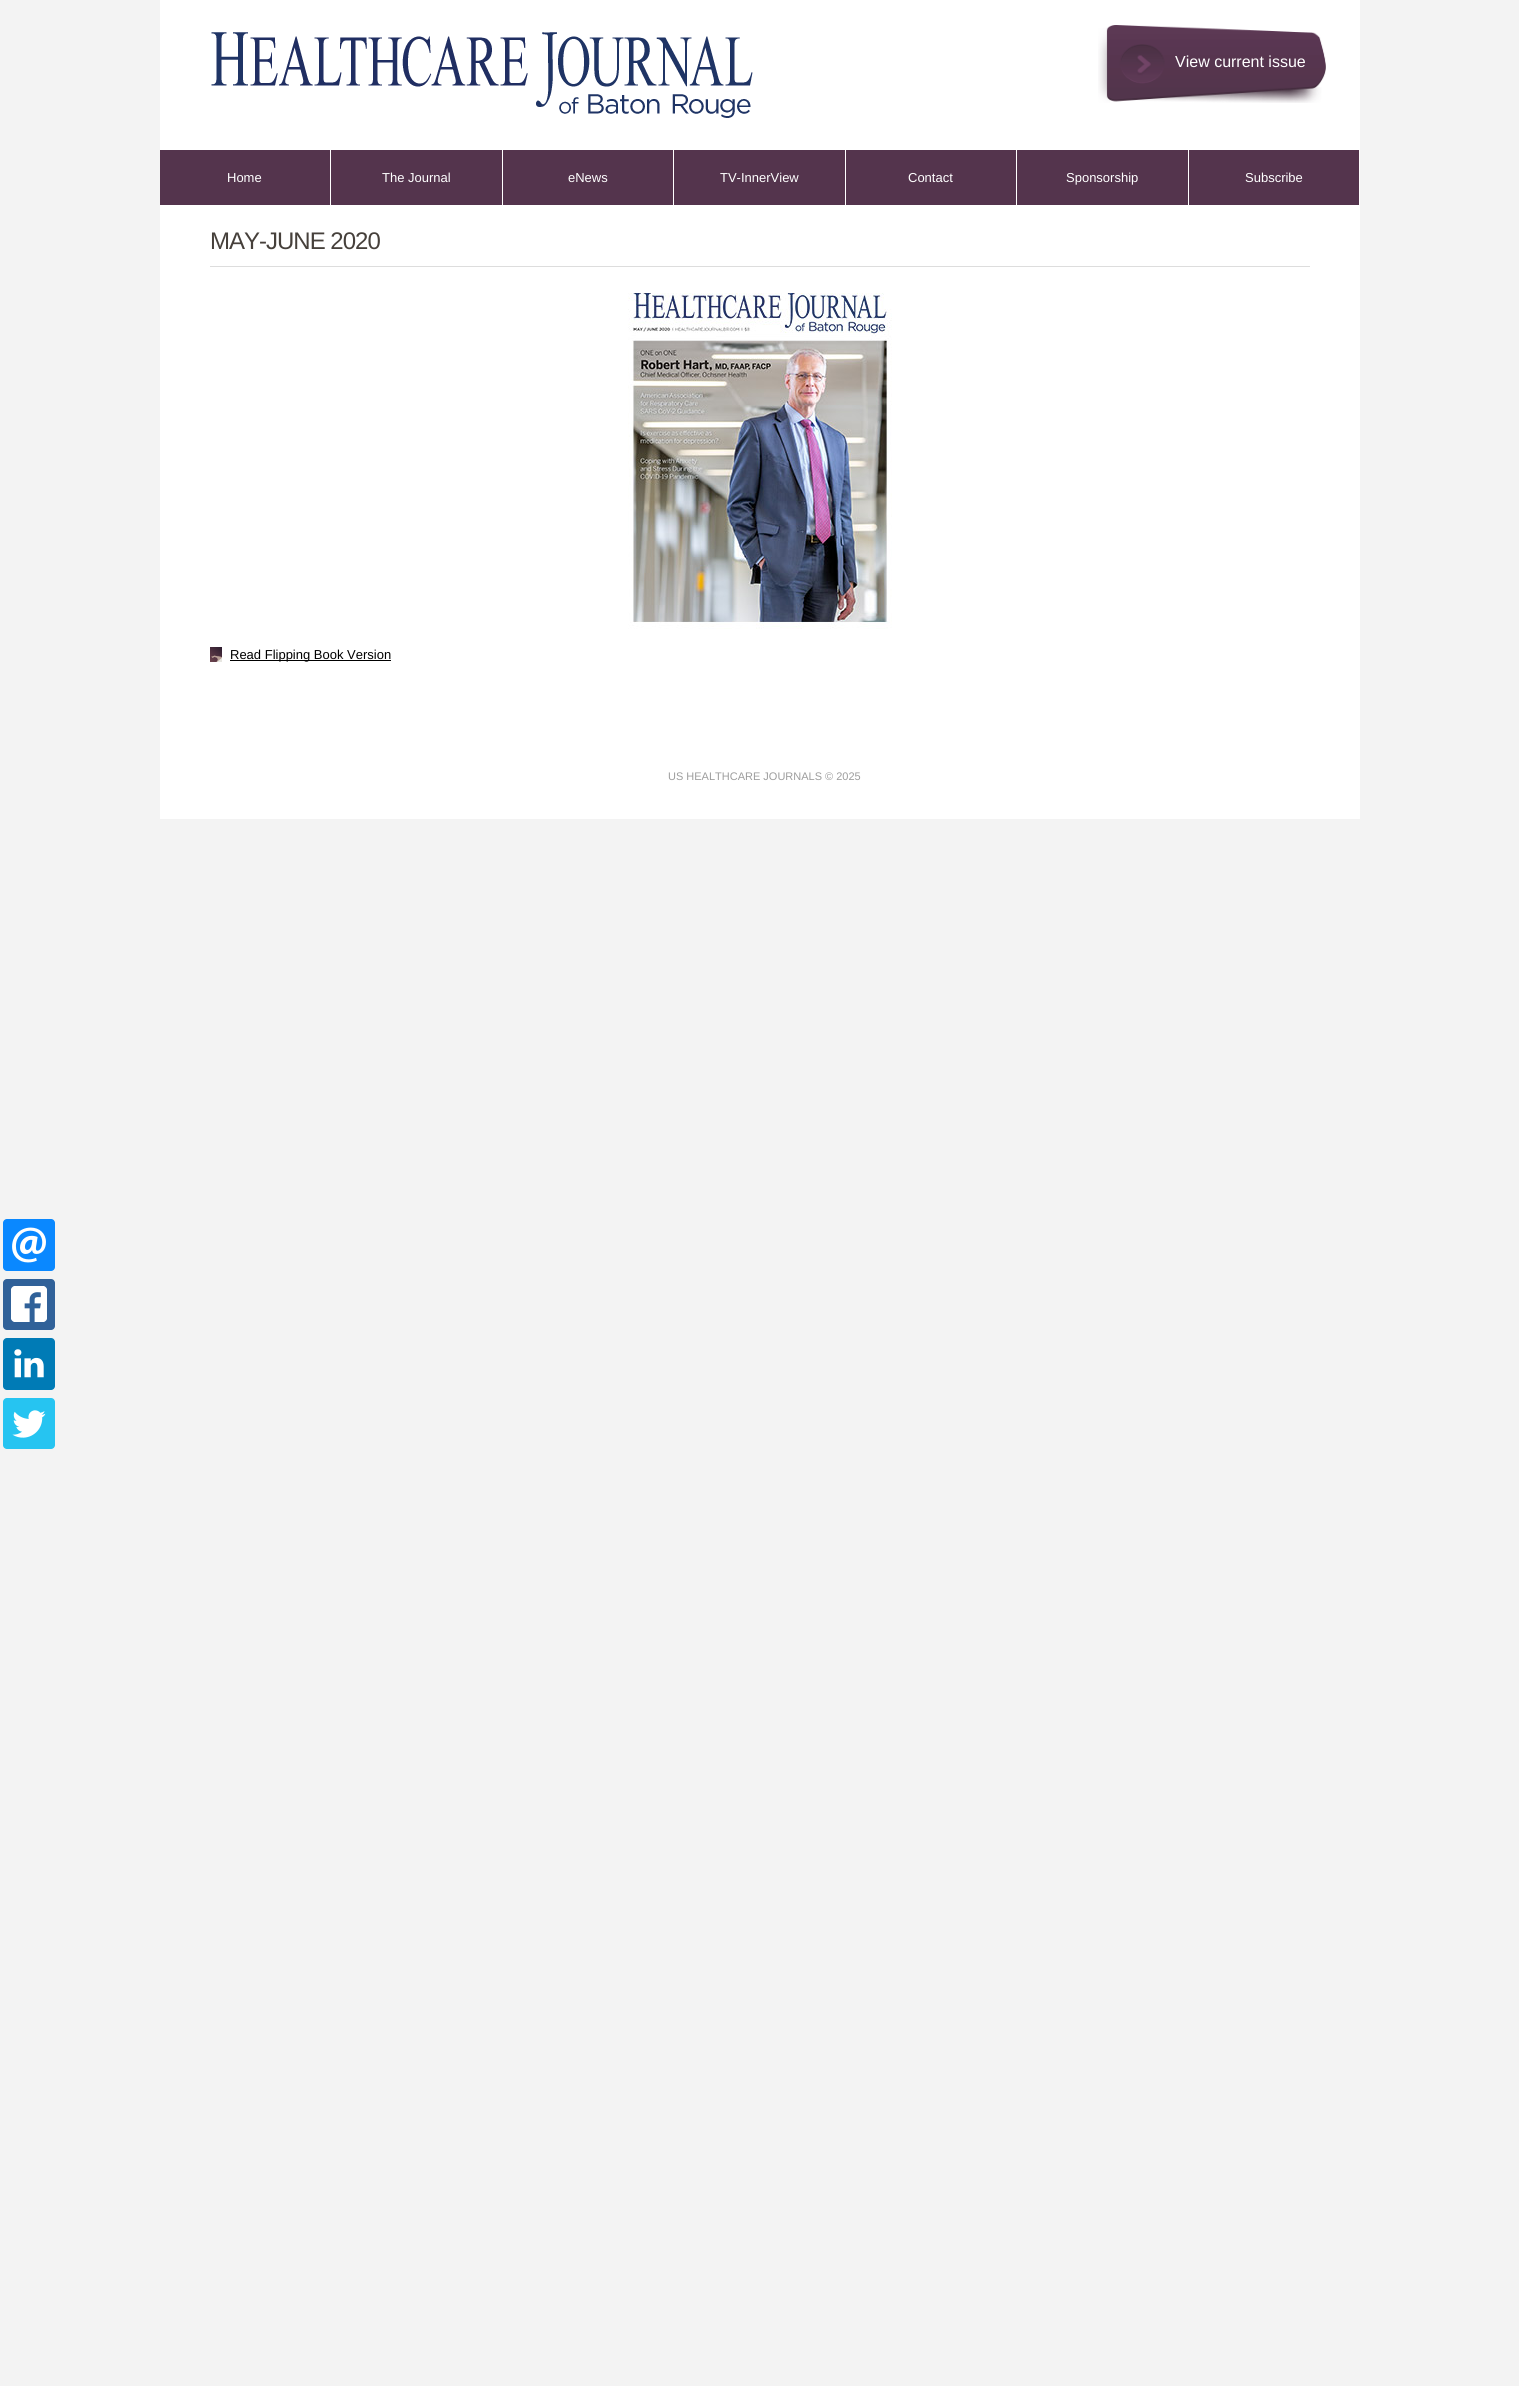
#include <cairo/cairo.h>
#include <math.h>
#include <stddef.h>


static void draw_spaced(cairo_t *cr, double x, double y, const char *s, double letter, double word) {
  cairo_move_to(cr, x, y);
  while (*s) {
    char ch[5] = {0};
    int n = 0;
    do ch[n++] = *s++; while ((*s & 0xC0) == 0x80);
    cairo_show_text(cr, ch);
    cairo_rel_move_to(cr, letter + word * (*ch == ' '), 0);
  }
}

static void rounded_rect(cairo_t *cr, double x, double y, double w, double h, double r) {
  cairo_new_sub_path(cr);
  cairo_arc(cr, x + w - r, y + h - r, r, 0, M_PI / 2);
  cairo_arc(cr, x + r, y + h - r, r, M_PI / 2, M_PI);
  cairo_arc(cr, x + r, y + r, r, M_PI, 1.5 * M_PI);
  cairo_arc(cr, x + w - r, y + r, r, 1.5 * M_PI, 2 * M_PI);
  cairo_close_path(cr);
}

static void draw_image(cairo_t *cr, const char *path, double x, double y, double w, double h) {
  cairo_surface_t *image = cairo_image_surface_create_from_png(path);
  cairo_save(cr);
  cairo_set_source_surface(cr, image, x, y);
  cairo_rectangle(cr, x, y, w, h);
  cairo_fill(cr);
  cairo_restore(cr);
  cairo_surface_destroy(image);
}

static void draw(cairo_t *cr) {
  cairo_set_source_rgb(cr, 243 / 255.0, 243 / 255.0, 243 / 255.0);
  cairo_paint(cr);
  cairo_set_source_rgb(cr, 1, 1, 1);
  cairo_rectangle(cr, 160, 0, 1200, 819);
  cairo_fill(cr);
  draw_image(cr, "images/1.png", 211, 32, 542, 86);
  draw_image(cr, "images/2.png", 1098, 25, 228, 78);
  cairo_set_source_rgb(cr, 84 / 255.0, 52 / 255.0, 77 / 255.0);
  cairo_rectangle(cr, 160, 150, 170, 55);
  cairo_fill(cr);
  cairo_rectangle(cr, 331, 150, 171, 55);
  cairo_fill(cr);
  cairo_rectangle(cr, 503, 150, 170, 55);
  cairo_fill(cr);
  cairo_rectangle(cr, 674, 150, 171, 55);
  cairo_fill(cr);
  cairo_rectangle(cr, 846, 150, 170, 55);
  cairo_fill(cr);
  cairo_rectangle(cr, 1017, 150, 171, 55);
  cairo_fill(cr);
  cairo_rectangle(cr, 1189, 150, 170, 55);
  cairo_fill(cr);
  cairo_set_source_rgb(cr, 221 / 255.0, 221 / 255.0, 221 / 255.0);
  cairo_rectangle(cr, 210, 266, 1100, 1);
  cairo_fill(cr);
  draw_image(cr, "images/3.png", 628, 293, 264, 336);
  draw_image(cr, "images/4.png", 210, 647, 12, 15);
  cairo_set_source_rgb(cr, 0, 0, 0);
  cairo_rectangle(cr, 230, 660, 161, 1);
  cairo_fill(cr);
  cairo_set_source_rgb(cr, 10 / 255.0, 136 / 255.0, 1);
  rounded_rect(cr, 3, 1219, 52, 52, 4);
  cairo_fill(cr);
  draw_image(cr, "images/5.png", 12, 1227, 34, 36);
  cairo_set_source_rgb(cr, 48 / 255.0, 97 / 255.0, 153 / 255.0);
  rounded_rect(cr, 3, 1279, 52, 51, 4);
  cairo_fill(cr);
  draw_image(cr, "images/6.png", 11, 1286, 36, 36);
  cairo_set_source_rgb(cr, 0, 123 / 255.0, 182 / 255.0);
  rounded_rect(cr, 3, 1338, 52, 52, 4);
  cairo_fill(cr);
  draw_image(cr, "images/7.png", 14, 1349, 30, 29);
  cairo_set_source_rgb(cr, 38 / 255.0, 196 / 255.0, 241 / 255.0);
  rounded_rect(cr, 3, 1398, 52, 51, 4);
  cairo_fill(cr);
  draw_image(cr, "images/8.png", 12, 1410, 34, 28);
  cairo_select_font_face(cr, "Liberation Sans", CAIRO_FONT_SLANT_NORMAL, CAIRO_FONT_WEIGHT_NORMAL);
  cairo_set_font_size(cr, 16);
  cairo_set_source_rgb(cr, 1, 1, 1);
  cairo_move_to(cr, 1175, 67);
  cairo_show_text(cr, "View current issue");
  cairo_set_font_size(cr, 13);
  cairo_move_to(cr, 227, 182);
  cairo_show_text(cr, "Home");
  cairo_move_to(cr, 382, 182);
  cairo_show_text(cr, "The Journal");
  cairo_move_to(cr, 568, 182);
  cairo_show_text(cr, "eNews");
  cairo_move_to(cr, 720, 182);
  cairo_show_text(cr, "TV-InnerView");
  cairo_move_to(cr, 908, 182);
  cairo_show_text(cr, "Contact");
  cairo_move_to(cr, 1066, 182);
  cairo_show_text(cr, "Sponsorship");
  cairo_move_to(cr, 1245, 182);
  cairo_show_text(cr, "Subscribe");
  cairo_set_font_size(cr, 24);
  cairo_set_source_rgb(cr, 70 / 255.0, 64 / 255.0, 59 / 255.0);
  draw_spaced(cr, 210, 249, "MAY-JUNE 2020", -1, 0);
  cairo_set_font_size(cr, 13);
  cairo_set_source_rgb(cr, 0, 0, 0);
  cairo_move_to(cr, 230, 659);
  cairo_show_text(cr, "Read Flipping Book Version");
  cairo_set_font_size(cr, 11);
  cairo_set_source_rgb(cr, 157 / 255.0, 157 / 255.0, 157 / 255.0);
  cairo_move_to(cr, 668, 780);
  cairo_show_text(cr, "US HEALTHCARE JOURNALS © 2025");
}

int main(void) {
  cairo_surface_t *surface = cairo_image_surface_create(CAIRO_FORMAT_RGB24, 1519, 2386);
  cairo_t *cr = cairo_create(surface);
  cairo_font_options_t *options = cairo_font_options_create();
  cairo_font_options_set_hint_metrics(options, CAIRO_HINT_METRICS_OFF);
  cairo_font_options_set_hint_style(options, CAIRO_HINT_STYLE_NONE);
  cairo_set_font_options(cr, options);
  cairo_set_miter_limit(cr, 4);
  draw(cr);
  cairo_surface_write_to_png(surface, "out.png");
  cairo_font_options_destroy(options);
  cairo_destroy(cr);
  cairo_surface_destroy(surface);
  return 0;
}
